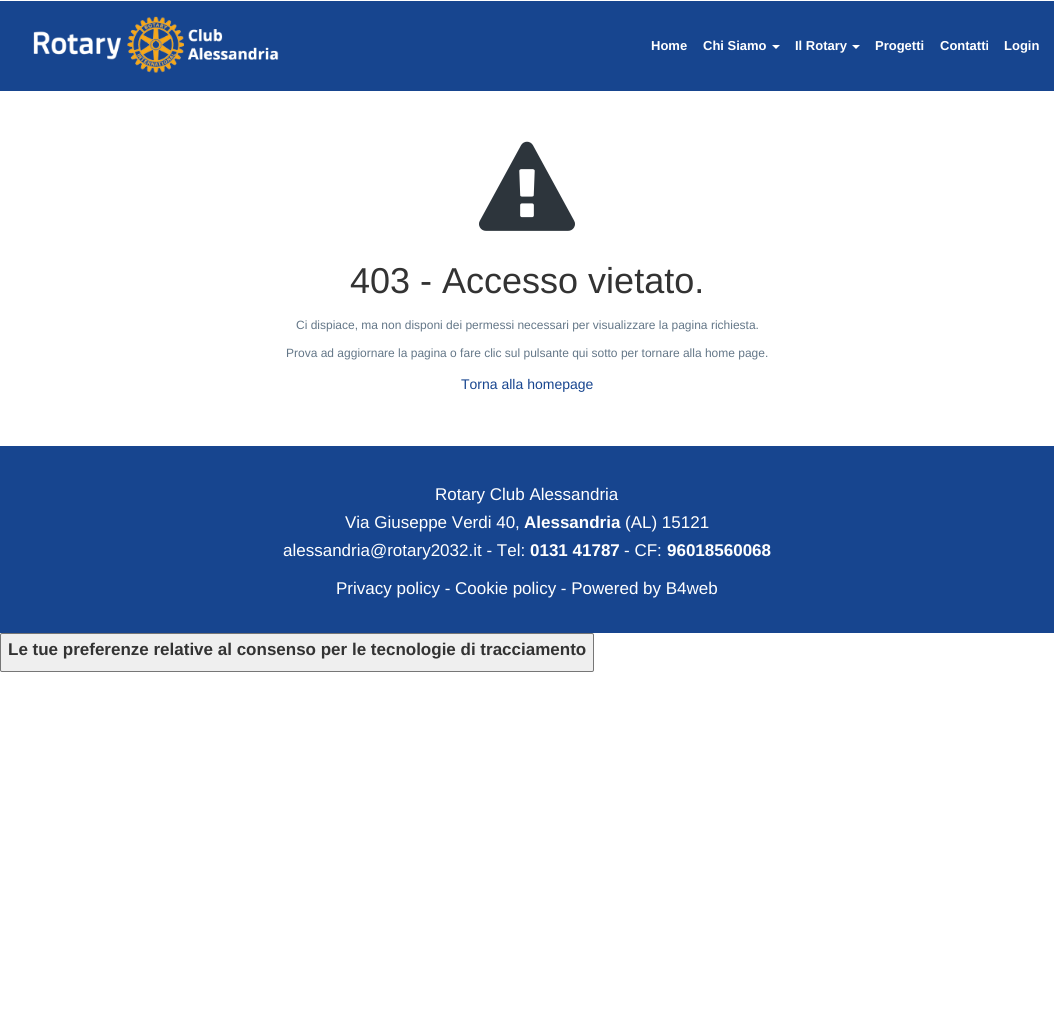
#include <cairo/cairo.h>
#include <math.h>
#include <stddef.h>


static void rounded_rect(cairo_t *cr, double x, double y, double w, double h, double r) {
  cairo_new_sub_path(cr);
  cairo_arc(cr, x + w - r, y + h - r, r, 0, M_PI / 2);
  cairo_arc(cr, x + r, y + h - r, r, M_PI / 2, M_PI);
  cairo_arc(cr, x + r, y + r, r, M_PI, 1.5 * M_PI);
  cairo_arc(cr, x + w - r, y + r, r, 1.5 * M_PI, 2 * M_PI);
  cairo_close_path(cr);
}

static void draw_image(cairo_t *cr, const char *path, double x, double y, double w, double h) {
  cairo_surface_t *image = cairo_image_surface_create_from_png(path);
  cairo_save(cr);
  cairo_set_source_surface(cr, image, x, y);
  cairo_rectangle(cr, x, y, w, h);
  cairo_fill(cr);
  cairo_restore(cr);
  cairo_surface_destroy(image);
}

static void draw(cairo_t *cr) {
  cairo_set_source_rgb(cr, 1, 1, 1);
  cairo_paint(cr);
  cairo_set_source_rgb(cr, 23 / 255.0, 69 / 255.0, 143 / 255.0);
  cairo_rectangle(cr, 0, 1, 1054, 90);
  cairo_fill(cr);
  draw_image(cr, "images/1.png", 33, 16, 246, 57);
  cairo_set_source_rgb(cr, 1, 1, 1);
  cairo_new_path(cr);
  cairo_move_to(cr, 772, 45);
  cairo_line_to(cr, 780, 45);
  cairo_line_to(cr, 776, 49);
  cairo_close_path(cr);
  cairo_fill(cr);
  cairo_new_path(cr);
  cairo_move_to(cr, 852, 45);
  cairo_line_to(cr, 860, 45);
  cairo_line_to(cr, 856, 49);
  cairo_close_path(cr);
  cairo_fill(cr);
  draw_image(cr, "images/2.png", 479, 141, 96, 90);
  cairo_set_source_rgb(cr, 23 / 255.0, 69 / 255.0, 143 / 255.0);
  cairo_rectangle(cr, 0, 446, 1054, 187);
  cairo_fill(cr);
  cairo_set_source_rgb(cr, 239 / 255.0, 239 / 255.0, 239 / 255.0);
  rounded_rect(cr, 0.5, 633.5, 593, 38, 1.5);
  cairo_fill_preserve(cr);
  cairo_set_source_rgb(cr, 118 / 255.0, 118 / 255.0, 118 / 255.0);
  cairo_set_line_width(cr, 1);
  cairo_stroke(cr);
  cairo_select_font_face(cr, "Liberation Sans", CAIRO_FONT_SLANT_NORMAL, CAIRO_FONT_WEIGHT_BOLD);
  cairo_set_font_size(cr, 13);
  cairo_set_source_rgb(cr, 1, 1, 1);
  cairo_move_to(cr, 651, 50);
  cairo_show_text(cr, "Home");
  cairo_move_to(cr, 703, 50);
  cairo_show_text(cr, "Chi Siamo");
  cairo_move_to(cr, 795, 50);
  cairo_show_text(cr, "Il Rotary");
  cairo_move_to(cr, 875, 50);
  cairo_show_text(cr, "Progetti");
  cairo_move_to(cr, 940, 50);
  cairo_show_text(cr, "Contatti");
  cairo_move_to(cr, 1004, 50);
  cairo_show_text(cr, "Login");
  cairo_select_font_face(cr, "Liberation Sans", CAIRO_FONT_SLANT_NORMAL, CAIRO_FONT_WEIGHT_NORMAL);
  cairo_set_font_size(cr, 36);
  cairo_set_source_rgb(cr, 51 / 255.0, 51 / 255.0, 51 / 255.0);
  cairo_move_to(cr, 350, 293);
  cairo_show_text(cr, "403 - Accesso vietato.");
  cairo_set_font_size(cr, 12);
  cairo_set_source_rgb(cr, 100 / 255.0, 119 / 255.0, 136 / 255.0);
  cairo_move_to(cr, 296, 329);
  cairo_show_text(cr, "Ci dispiace, ma non disponi dei permessi necessari per visualizzare la pagina richiesta.");
  cairo_move_to(cr, 286, 357);
  cairo_show_text(cr, "Prova ad aggiornare la pagina o fare clic sul pulsante qui sotto per tornare alla home page.");
  cairo_set_font_size(cr, 14);
  cairo_set_source_rgb(cr, 23 / 255.0, 69 / 255.0, 143 / 255.0);
  cairo_move_to(cr, 461, 389);
  cairo_show_text(cr, "Torna alla homepage");
  cairo_set_font_size(cr, 17);
  cairo_set_source_rgb(cr, 1, 1, 1);
  cairo_move_to(cr, 435, 500);
  cairo_show_text(cr, "Rotary Club Alessandria");
  cairo_move_to(cr, 345, 528);
  cairo_show_text(cr, "Via Giuseppe Verdi 40,");
  cairo_select_font_face(cr, "Liberation Sans", CAIRO_FONT_SLANT_NORMAL, CAIRO_FONT_WEIGHT_BOLD);
  cairo_move_to(cr, 524, 528);
  cairo_show_text(cr, "Alessandria");
  cairo_select_font_face(cr, "Liberation Sans", CAIRO_FONT_SLANT_NORMAL, CAIRO_FONT_WEIGHT_NORMAL);
  cairo_move_to(cr, 625, 528);
  cairo_show_text(cr, "(AL) 15121");
  cairo_move_to(cr, 283, 556);
  cairo_show_text(cr, "alessandria@rotary2032.it - Tel:");
  cairo_select_font_face(cr, "Liberation Sans", CAIRO_FONT_SLANT_NORMAL, CAIRO_FONT_WEIGHT_BOLD);
  cairo_move_to(cr, 530, 556);
  cairo_show_text(cr, "0131 41787");
  cairo_select_font_face(cr, "Liberation Sans", CAIRO_FONT_SLANT_NORMAL, CAIRO_FONT_WEIGHT_NORMAL);
  cairo_move_to(cr, 624, 556);
  cairo_show_text(cr, "- CF:");
  cairo_select_font_face(cr, "Liberation Sans", CAIRO_FONT_SLANT_NORMAL, CAIRO_FONT_WEIGHT_BOLD);
  cairo_move_to(cr, 667, 556);
  cairo_show_text(cr, "96018560068");
  cairo_select_font_face(cr, "Liberation Sans", CAIRO_FONT_SLANT_NORMAL, CAIRO_FONT_WEIGHT_NORMAL);
  cairo_move_to(cr, 336, 594);
  cairo_show_text(cr, "Privacy policy - Cookie policy - Powered by B4web");
  cairo_select_font_face(cr, "Liberation Sans", CAIRO_FONT_SLANT_NORMAL, CAIRO_FONT_WEIGHT_BOLD);
  cairo_set_source_rgb(cr, 51 / 255.0, 51 / 255.0, 51 / 255.0);
  cairo_move_to(cr, 8, 655);
  cairo_show_text(cr, "Le tue preferenze relative al consenso per le tecnologie di tracciamento");
}

int main(void) {
  cairo_surface_t *surface = cairo_image_surface_create(CAIRO_FORMAT_RGB24, 1054, 1036);
  cairo_t *cr = cairo_create(surface);
  cairo_font_options_t *options = cairo_font_options_create();
  cairo_font_options_set_hint_metrics(options, CAIRO_HINT_METRICS_OFF);
  cairo_font_options_set_hint_style(options, CAIRO_HINT_STYLE_NONE);
  cairo_set_font_options(cr, options);
  cairo_set_miter_limit(cr, 4);
  draw(cr);
  cairo_surface_write_to_png(surface, "out.png");
  cairo_font_options_destroy(options);
  cairo_destroy(cr);
  cairo_surface_destroy(surface);
  return 0;
}
